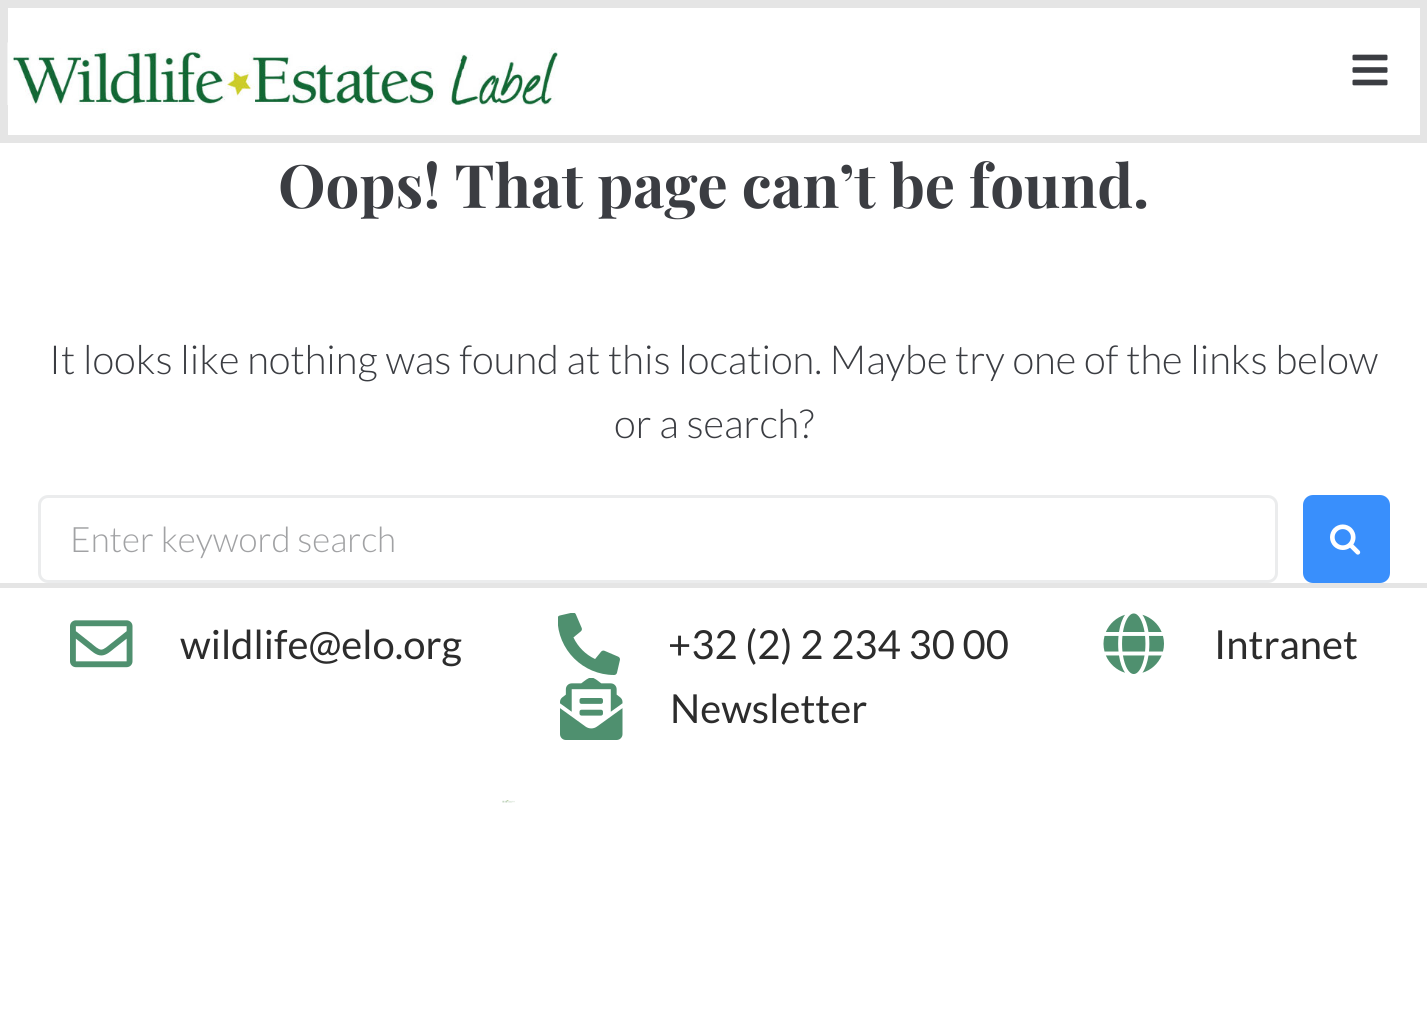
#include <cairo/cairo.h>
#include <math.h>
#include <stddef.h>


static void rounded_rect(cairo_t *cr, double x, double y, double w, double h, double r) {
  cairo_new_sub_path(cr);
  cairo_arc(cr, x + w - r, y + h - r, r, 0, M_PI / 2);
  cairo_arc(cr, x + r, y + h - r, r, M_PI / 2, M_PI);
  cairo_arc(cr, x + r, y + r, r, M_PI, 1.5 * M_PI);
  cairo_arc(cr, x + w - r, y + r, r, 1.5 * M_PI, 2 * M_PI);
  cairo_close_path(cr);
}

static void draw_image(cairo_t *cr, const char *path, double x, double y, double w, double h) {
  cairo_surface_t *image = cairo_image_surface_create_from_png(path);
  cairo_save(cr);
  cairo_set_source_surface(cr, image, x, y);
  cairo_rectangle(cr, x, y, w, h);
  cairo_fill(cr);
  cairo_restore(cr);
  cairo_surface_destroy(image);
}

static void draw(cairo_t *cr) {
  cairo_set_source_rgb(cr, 1, 1, 1);
  cairo_paint(cr);
  cairo_rectangle(cr, 4, 4, 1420, 135);
  cairo_set_source_rgb(cr, 229 / 255.0, 229 / 255.0, 229 / 255.0);
  cairo_set_line_width(cr, 8);
  cairo_stroke(cr);
  draw_image(cr, "images/1.png", 7, 42, 551, 63);
  draw_image(cr, "images/2.png", 1352, 54, 36, 32);
  rounded_rect(cr, 39.5, 496.5, 1237, 85, 8.5);
  cairo_set_source_rgb(cr, 235 / 255.0, 236 / 255.0, 237 / 255.0);
  cairo_set_line_width(cr, 3);
  cairo_stroke(cr);
  cairo_set_source_rgb(cr, 57 / 255.0, 143 / 255.0, 252 / 255.0);
  rounded_rect(cr, 1303, 495, 87, 88, 10);
  cairo_fill(cr);
  draw_image(cr, "images/3.png", 1330, 524, 31, 31);
  cairo_set_source_rgb(cr, 229 / 255.0, 229 / 255.0, 229 / 255.0);
  cairo_rectangle(cr, 0, 583, 1427, 5);
  cairo_fill(cr);
  draw_image(cr, "images/4.png", 70, 620, 63, 48);
  draw_image(cr, "images/5.png", 558, 613, 62, 62);
  draw_image(cr, "images/6.png", 1103, 613, 61, 61);
  draw_image(cr, "images/7.png", 560, 678, 63, 62);
  draw_image(cr, "images/8.png", 502, 800, 13, 3);
  cairo_select_font_face(cr, "Playfair Display", CAIRO_FONT_SLANT_NORMAL, CAIRO_FONT_WEIGHT_BOLD);
  cairo_set_font_size(cr, 60);
  cairo_set_source_rgb(cr, 59 / 255.0, 61 / 255.0, 66 / 255.0);
  cairo_move_to(cr, 278, 208);
  cairo_show_text(cr, "Oops! That page can’t be found.");
  cairo_select_font_face(cr, "Lato Light", CAIRO_FONT_SLANT_NORMAL, CAIRO_FONT_WEIGHT_NORMAL);
  cairo_set_font_size(cr, 40);
  cairo_move_to(cr, 49, 374);
  cairo_show_text(cr, "It looks like nothing was found at this location. Maybe try one of the links below");
  cairo_move_to(cr, 614, 438);
  cairo_show_text(cr, "or a search?");
  cairo_set_font_size(cr, 35);
  cairo_set_source_rgb(cr, 161 / 255.0, 162 / 255.0, 164 / 255.0);
  cairo_move_to(cr, 70, 552);
  cairo_show_text(cr, "Enter keyword search");
  cairo_select_font_face(cr, "Lato", CAIRO_FONT_SLANT_NORMAL, CAIRO_FONT_WEIGHT_NORMAL);
  cairo_set_font_size(cr, 40);
  cairo_set_source_rgb(cr, 44 / 255.0, 44 / 255.0, 44 / 255.0);
  cairo_move_to(cr, 180, 659);
  cairo_show_text(cr, "wildlife@elo.org");
  cairo_move_to(cr, 668, 659);
  cairo_show_text(cr, "+32 (2) 2 234 30 00");
  cairo_move_to(cr, 1214, 659);
  cairo_show_text(cr, "Intranet");
  cairo_move_to(cr, 670, 723);
  cairo_show_text(cr, "Newsletter");
}

int main(void) {
  cairo_surface_t *surface = cairo_image_surface_create(CAIRO_FORMAT_RGB24, 1427, 1016);
  cairo_t *cr = cairo_create(surface);
  cairo_font_options_t *options = cairo_font_options_create();
  cairo_font_options_set_hint_metrics(options, CAIRO_HINT_METRICS_OFF);
  cairo_font_options_set_hint_style(options, CAIRO_HINT_STYLE_NONE);
  cairo_set_font_options(cr, options);
  cairo_set_miter_limit(cr, 4);
  draw(cr);
  cairo_surface_write_to_png(surface, "out.png");
  cairo_font_options_destroy(options);
  cairo_destroy(cr);
  cairo_surface_destroy(surface);
  return 0;
}
